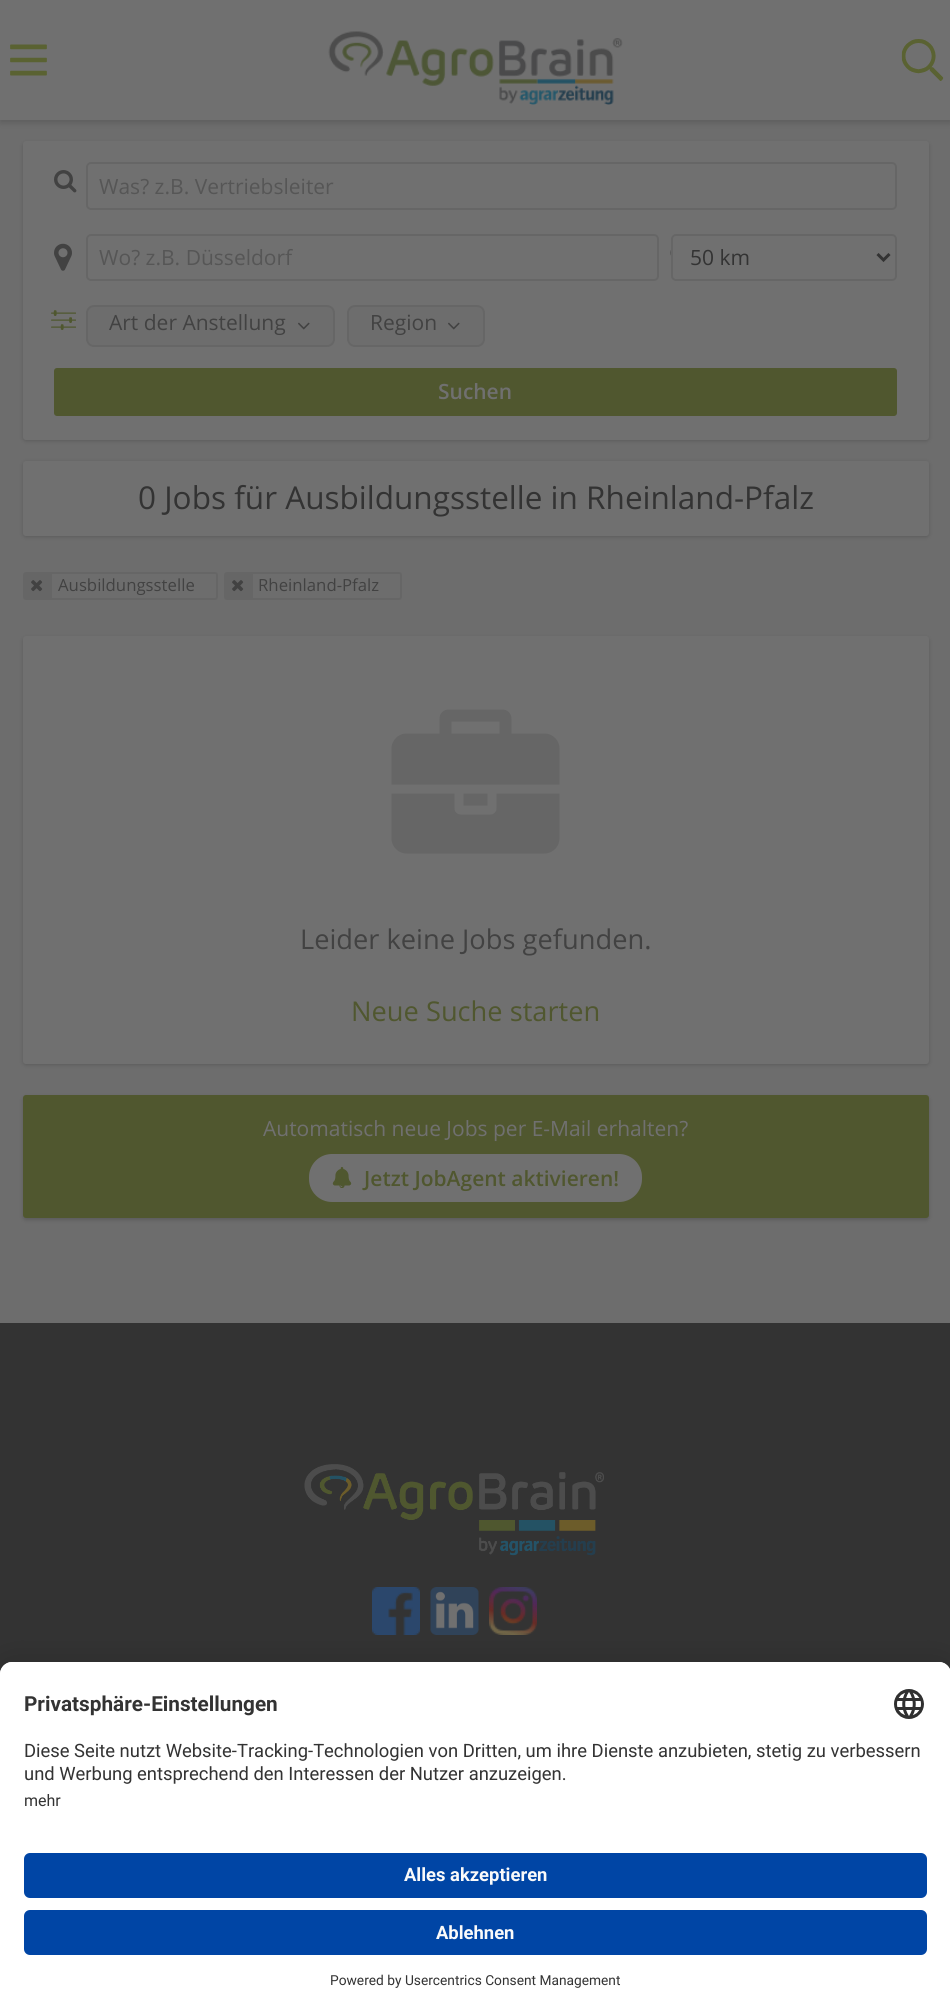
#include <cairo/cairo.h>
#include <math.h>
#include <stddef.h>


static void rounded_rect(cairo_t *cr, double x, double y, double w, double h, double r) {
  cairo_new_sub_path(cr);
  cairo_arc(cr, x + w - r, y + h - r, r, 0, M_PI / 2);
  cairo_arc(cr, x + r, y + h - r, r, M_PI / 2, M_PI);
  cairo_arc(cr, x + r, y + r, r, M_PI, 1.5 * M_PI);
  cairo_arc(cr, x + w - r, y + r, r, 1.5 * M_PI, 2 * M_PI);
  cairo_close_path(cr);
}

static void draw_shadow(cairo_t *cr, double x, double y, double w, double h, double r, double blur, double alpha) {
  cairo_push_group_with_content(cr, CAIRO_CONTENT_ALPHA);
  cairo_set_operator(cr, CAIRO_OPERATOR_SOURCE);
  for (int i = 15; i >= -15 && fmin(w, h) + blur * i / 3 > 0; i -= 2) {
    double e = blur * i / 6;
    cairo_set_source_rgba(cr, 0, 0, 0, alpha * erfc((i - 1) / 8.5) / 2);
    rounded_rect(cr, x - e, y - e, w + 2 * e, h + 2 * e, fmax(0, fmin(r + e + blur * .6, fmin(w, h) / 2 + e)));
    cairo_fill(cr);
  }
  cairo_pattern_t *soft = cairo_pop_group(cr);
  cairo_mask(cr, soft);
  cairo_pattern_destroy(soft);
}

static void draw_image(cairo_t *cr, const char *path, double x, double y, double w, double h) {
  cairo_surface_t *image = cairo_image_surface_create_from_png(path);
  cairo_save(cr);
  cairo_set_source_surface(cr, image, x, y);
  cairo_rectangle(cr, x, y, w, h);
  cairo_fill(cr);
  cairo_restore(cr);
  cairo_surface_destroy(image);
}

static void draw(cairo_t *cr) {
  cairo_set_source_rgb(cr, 109 / 255.0, 109 / 255.0, 109 / 255.0);
  cairo_paint(cr);
  cairo_set_source_rgb(cr, 79 / 255.0, 79 / 255.0, 79 / 255.0);
  draw_shadow(cr, 0, 3, 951, 120, 0, 3, 0.5);
  cairo_set_source_rgb(cr, 112 / 255.0, 112 / 255.0, 112 / 255.0);
  cairo_rectangle(cr, 0, 0, 950, 120);
  cairo_fill(cr);
  draw_image(cr, "images/1.png", 10, 44, 37, 32);
  draw_image(cr, "images/2.png", 328, 31, 295, 74);
  draw_image(cr, "images/3.png", 901, 39, 43, 42);
  cairo_set_source_rgb(cr, 36 / 255.0, 36 / 255.0, 36 / 255.0);
  draw_shadow(cr, 23, 143, 906, 298, 3, 2, 0.25);
  cairo_set_source_rgb(cr, 112 / 255.0, 112 / 255.0, 112 / 255.0);
  rounded_rect(cr, 23, 141, 906, 299, 3);
  cairo_fill(cr);
  draw_image(cr, "images/4.png", 54, 170, 23, 23);
  rounded_rect(cr, 87, 163, 809, 46, 4);
  cairo_set_source_rgb(cr, 102 / 255.0, 102 / 255.0, 102 / 255.0);
  cairo_stroke(cr);
  draw_image(cr, "images/5.png", 54, 243, 18, 28);
  rounded_rect(cr, 87, 235, 571, 45, 4);
  cairo_stroke(cr);
  draw_image(cr, "images/6.png", 670, 250, 1, 6);
  rounded_rect(cr, 672, 235, 224, 45, 4);
  cairo_stroke(cr);
  cairo_new_path(cr);
  cairo_move_to(cr, 877.5, 254);
  cairo_line_to(cr, 883.5, 260);
  cairo_line_to(cr, 889.5, 254);
  cairo_set_source_rgb(cr, 51 / 255.0, 51 / 255.0, 51 / 255.0);
  cairo_set_line_width(cr, 3);
  cairo_stroke(cr);
  draw_image(cr, "images/7.png", 51, 310, 25, 20);
  cairo_set_source_rgb(cr, 109 / 255.0, 109 / 255.0, 109 / 255.0);
  rounded_rect(cr, 87, 306, 247, 40, 7);
  cairo_fill_preserve(cr);
  cairo_set_source_rgb(cr, 102 / 255.0, 102 / 255.0, 102 / 255.0);
  cairo_set_line_width(cr, 2);
  cairo_stroke(cr);
  draw_image(cr, "images/8.png", 298, 322, 12, 8);
  cairo_set_source_rgb(cr, 109 / 255.0, 109 / 255.0, 109 / 255.0);
  rounded_rect(cr, 348, 306, 136, 40, 7);
  cairo_fill_preserve(cr);
  cairo_set_source_rgb(cr, 102 / 255.0, 102 / 255.0, 102 / 255.0);
  cairo_stroke(cr);
  draw_image(cr, "images/8.png", 448, 322, 12, 8);
  cairo_set_source_rgb(cr, 80 / 255.0, 87 / 255.0, 47 / 255.0);
  rounded_rect(cr, 55, 369, 841, 46, 2);
  cairo_fill_preserve(cr);
  cairo_stroke(cr);
  cairo_set_source_rgb(cr, 36 / 255.0, 36 / 255.0, 36 / 255.0);
  draw_shadow(cr, 23, 462, 906, 75, 3, 2, 0.25);
  cairo_set_source_rgb(cr, 112 / 255.0, 112 / 255.0, 112 / 255.0);
  rounded_rect(cr, 23, 461, 906, 75, 3);
  cairo_fill(cr);
  rounded_rect(cr, 24, 573, 193, 26, 2);
  cairo_set_source_rgb(cr, 102 / 255.0, 102 / 255.0, 102 / 255.0);
  cairo_stroke(cr);
  cairo_rectangle(cr, 25, 574, 25, 24);
  cairo_fill(cr);
  cairo_rectangle(cr, 50, 573, 2, 26);
  cairo_fill(cr);
  draw_image(cr, "images/9.png", 31, 580, 12, 12);
  rounded_rect(cr, 225, 573, 176, 26, 2);
  cairo_stroke(cr);
  cairo_rectangle(cr, 226, 574, 25, 24);
  cairo_fill(cr);
  cairo_rectangle(cr, 251, 573, 2, 26);
  cairo_fill(cr);
  draw_image(cr, "images/9.png", 232, 580, 12, 12);
  cairo_set_source_rgb(cr, 36 / 255.0, 36 / 255.0, 36 / 255.0);
  draw_shadow(cr, 23, 638, 906, 427, 3, 2, 0.25);
  cairo_set_source_rgb(cr, 112 / 255.0, 112 / 255.0, 112 / 255.0);
  rounded_rect(cr, 23, 636, 906, 428, 3);
  cairo_fill(cr);
  draw_image(cr, "images/10.png", 391, 709, 169, 145);
  cairo_set_source_rgb(cr, 36 / 255.0, 36 / 255.0, 36 / 255.0);
  draw_shadow(cr, 23, 1097, 906, 123, 3, 2, 0.25);
  cairo_set_source_rgb(cr, 80 / 255.0, 87 / 255.0, 47 / 255.0);
  rounded_rect(cr, 23, 1095, 906, 123, 3);
  cairo_fill(cr);
  cairo_set_source_rgb(cr, 112 / 255.0, 112 / 255.0, 112 / 255.0);
  rounded_rect(cr, 310, 1155, 331, 46, 22);
  cairo_fill_preserve(cr);
  cairo_stroke(cr);
  draw_image(cr, "images/11.png", 332, 1167, 20, 21);
  cairo_set_source_rgb(cr, 51 / 255.0, 51 / 255.0, 51 / 255.0);
  cairo_rectangle(cr, 0, 1323, 950, 351);
  cairo_fill(cr);
  draw_image(cr, "images/12.png", 304, 1464, 300, 92);
  draw_image(cr, "images/13.png", 372, 1587, 48, 48);
  draw_image(cr, "images/14.png", 430, 1587, 49, 48);
  draw_image(cr, "images/15.png", 489, 1587, 48, 48);
  cairo_set_source_rgb(cr, 0, 0, 0);
  draw_shadow(cr, 0, 1670, 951, 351, 12, 19.5, 0.22);
  cairo_set_source_rgb(cr, 1, 1, 1);
  cairo_new_path(cr);
  cairo_move_to(cr, 12, 1662);
  cairo_line_to(cr, 939, 1662);
  cairo_curve_to(cr, 945.5, 1662, 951, 1667.5, 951, 1674);
  cairo_line_to(cr, 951, 2013);
  cairo_line_to(cr, 0, 2013);
  cairo_line_to(cr, 0, 1674);
  cairo_curve_to(cr, 0, 1667.5, 5.5, 1662, 12, 1662);
  cairo_close_path(cr);
  cairo_fill(cr);
  cairo_new_path(cr);
  cairo_move_to(cr, 12, 1662);
  cairo_line_to(cr, 939, 1662);
  cairo_curve_to(cr, 945.5, 1662, 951, 1667.5, 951, 1674);
  cairo_line_to(cr, 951, 1835);
  cairo_line_to(cr, 0, 1835);
  cairo_line_to(cr, 0, 1674);
  cairo_curve_to(cr, 0, 1667.5, 5.5, 1662, 12, 1662);
  cairo_close_path(cr);
  cairo_fill(cr);
  draw_image(cr, "images/16.png", 894, 1689, 30, 30);
  cairo_set_source_rgb(cr, 0, 69 / 255.0, 165 / 255.0);
  rounded_rect(cr, 24, 1853, 903, 45, 6);
  cairo_fill(cr);
  rounded_rect(cr, 24, 1910, 903, 45, 6);
  cairo_fill(cr);
  cairo_select_font_face(cr, "Open Sans", CAIRO_FONT_SLANT_NORMAL, CAIRO_FONT_WEIGHT_NORMAL);
  cairo_set_font_size(cr, 21);
  cairo_set_source_rgb(cr, 86 / 255.0, 86 / 255.0, 86 / 255.0);
  cairo_move_to(cr, 99, 194);
  cairo_show_text(cr, "Was? z.B. Vertriebsleiter");
  cairo_move_to(cr, 99, 265);
  cairo_show_text(cr, "Wo? z.B. Düsseldorf");
  cairo_set_source_rgb(cr, 51 / 255.0, 51 / 255.0, 51 / 255.0);
  cairo_move_to(cr, 690, 265);
  cairo_show_text(cr, "50 km");
  cairo_set_source_rgb(cr, 66 / 255.0, 66 / 255.0, 66 / 255.0);
  cairo_move_to(cr, 109, 330);
  cairo_show_text(cr, "Art der Anstellung");
  cairo_move_to(cr, 370, 330);
  cairo_show_text(cr, "Region");
  cairo_select_font_face(cr, "Open Sans SemiBold", CAIRO_FONT_SLANT_NORMAL, CAIRO_FONT_WEIGHT_NORMAL);
  cairo_set_source_rgb(cr, 112 / 255.0, 112 / 255.0, 112 / 255.0);
  cairo_move_to(cr, 438, 399);
  cairo_show_text(cr, "Suchen");
  cairo_select_font_face(cr, "Open Sans", CAIRO_FONT_SLANT_NORMAL, CAIRO_FONT_WEIGHT_NORMAL);
  cairo_set_font_size(cr, 31.5);
  cairo_set_source_rgb(cr, 51 / 255.0, 51 / 255.0, 51 / 255.0);
  cairo_move_to(cr, 138, 509);
  cairo_show_text(cr, "0 Jobs für Ausbildungsstelle in Rheinland-Pfalz");
  cairo_set_font_size(cr, 16.75);
  cairo_set_source_rgb(cr, 66 / 255.0, 66 / 255.0, 66 / 255.0);
  cairo_move_to(cr, 58, 591);
  cairo_show_text(cr, "Ausbildungsstelle");
  cairo_move_to(cr, 258, 591);
  cairo_show_text(cr, "Rheinland-Pfalz");
  cairo_set_font_size(cr, 27.25);
  cairo_move_to(cr, 300, 949);
  cairo_show_text(cr, "Leider keine Jobs gefunden.");
  cairo_set_source_rgb(cr, 80 / 255.0, 87 / 255.0, 47 / 255.0);
  cairo_move_to(cr, 351, 1021);
  cairo_show_text(cr, "Neue Suche starten");
  cairo_set_font_size(cr, 21);
  cairo_set_source_rgb(cr, 112 / 255.0, 112 / 255.0, 112 / 255.0);
  cairo_move_to(cr, 263, 1136);
  cairo_show_text(cr, "Automatisch neue Jobs per E-Mail erhalten?");
  cairo_select_font_face(cr, "Open Sans SemiBold", CAIRO_FONT_SLANT_NORMAL, CAIRO_FONT_WEIGHT_NORMAL);
  cairo_set_source_rgb(cr, 80 / 255.0, 87 / 255.0, 47 / 255.0);
  cairo_move_to(cr, 364, 1186);
  cairo_show_text(cr, "Jetzt JobAgent aktivieren!");
  cairo_select_font_face(cr, "Roboto", CAIRO_FONT_SLANT_NORMAL, CAIRO_FONT_WEIGHT_BOLD);
  cairo_set_font_size(cr, 20.75);
  cairo_set_source_rgb(cr, 51 / 255.0, 51 / 255.0, 51 / 255.0);
  cairo_move_to(cr, 24, 1711);
  cairo_show_text(cr, "Privatsphäre-Einstellungen");
  cairo_select_font_face(cr, "Roboto", CAIRO_FONT_SLANT_NORMAL, CAIRO_FONT_WEIGHT_NORMAL);
  cairo_set_font_size(cr, 18.4);
  cairo_move_to(cr, 24, 1757);
  cairo_show_text(cr, "Diese Seite nutzt Website-Tracking-Technologien von Dritten, um ihre Dienste anzubieten, stetig zu verbessern");
  cairo_move_to(cr, 24, 1780);
  cairo_show_text(cr, "und Werbung entsprechend den Interessen der Nutzer anzuzeigen.");
  cairo_set_font_size(cr, 16);
  cairo_move_to(cr, 24, 1806);
  cairo_show_text(cr, "mehr");
  cairo_select_font_face(cr, "Roboto", CAIRO_FONT_SLANT_NORMAL, CAIRO_FONT_WEIGHT_BOLD);
  cairo_set_font_size(cr, 18.4);
  cairo_set_source_rgb(cr, 250 / 255.0, 250 / 255.0, 250 / 255.0);
  cairo_move_to(cr, 404, 1881);
  cairo_show_text(cr, "Alles akzeptieren");
  cairo_move_to(cr, 436, 1939);
  cairo_show_text(cr, "Ablehnen");
  cairo_select_font_face(cr, "Roboto", CAIRO_FONT_SLANT_NORMAL, CAIRO_FONT_WEIGHT_NORMAL);
  cairo_set_font_size(cr, 13.75);
  cairo_set_source_rgb(cr, 51 / 255.0, 51 / 255.0, 51 / 255.0);
  cairo_move_to(cr, 330, 1985);
  cairo_show_text(cr, "Powered by Usercentrics Consent Management");
}

int main(void) {
  cairo_surface_t *surface = cairo_image_surface_create(CAIRO_FORMAT_RGB24, 950, 2013);
  cairo_t *cr = cairo_create(surface);
  cairo_font_options_t *options = cairo_font_options_create();
  cairo_font_options_set_hint_metrics(options, CAIRO_HINT_METRICS_OFF);
  cairo_font_options_set_hint_style(options, CAIRO_HINT_STYLE_NONE);
  cairo_set_font_options(cr, options);
  cairo_set_miter_limit(cr, 4);
  draw(cr);
  cairo_surface_write_to_png(surface, "out.png");
  cairo_font_options_destroy(options);
  cairo_destroy(cr);
  cairo_surface_destroy(surface);
  return 0;
}
